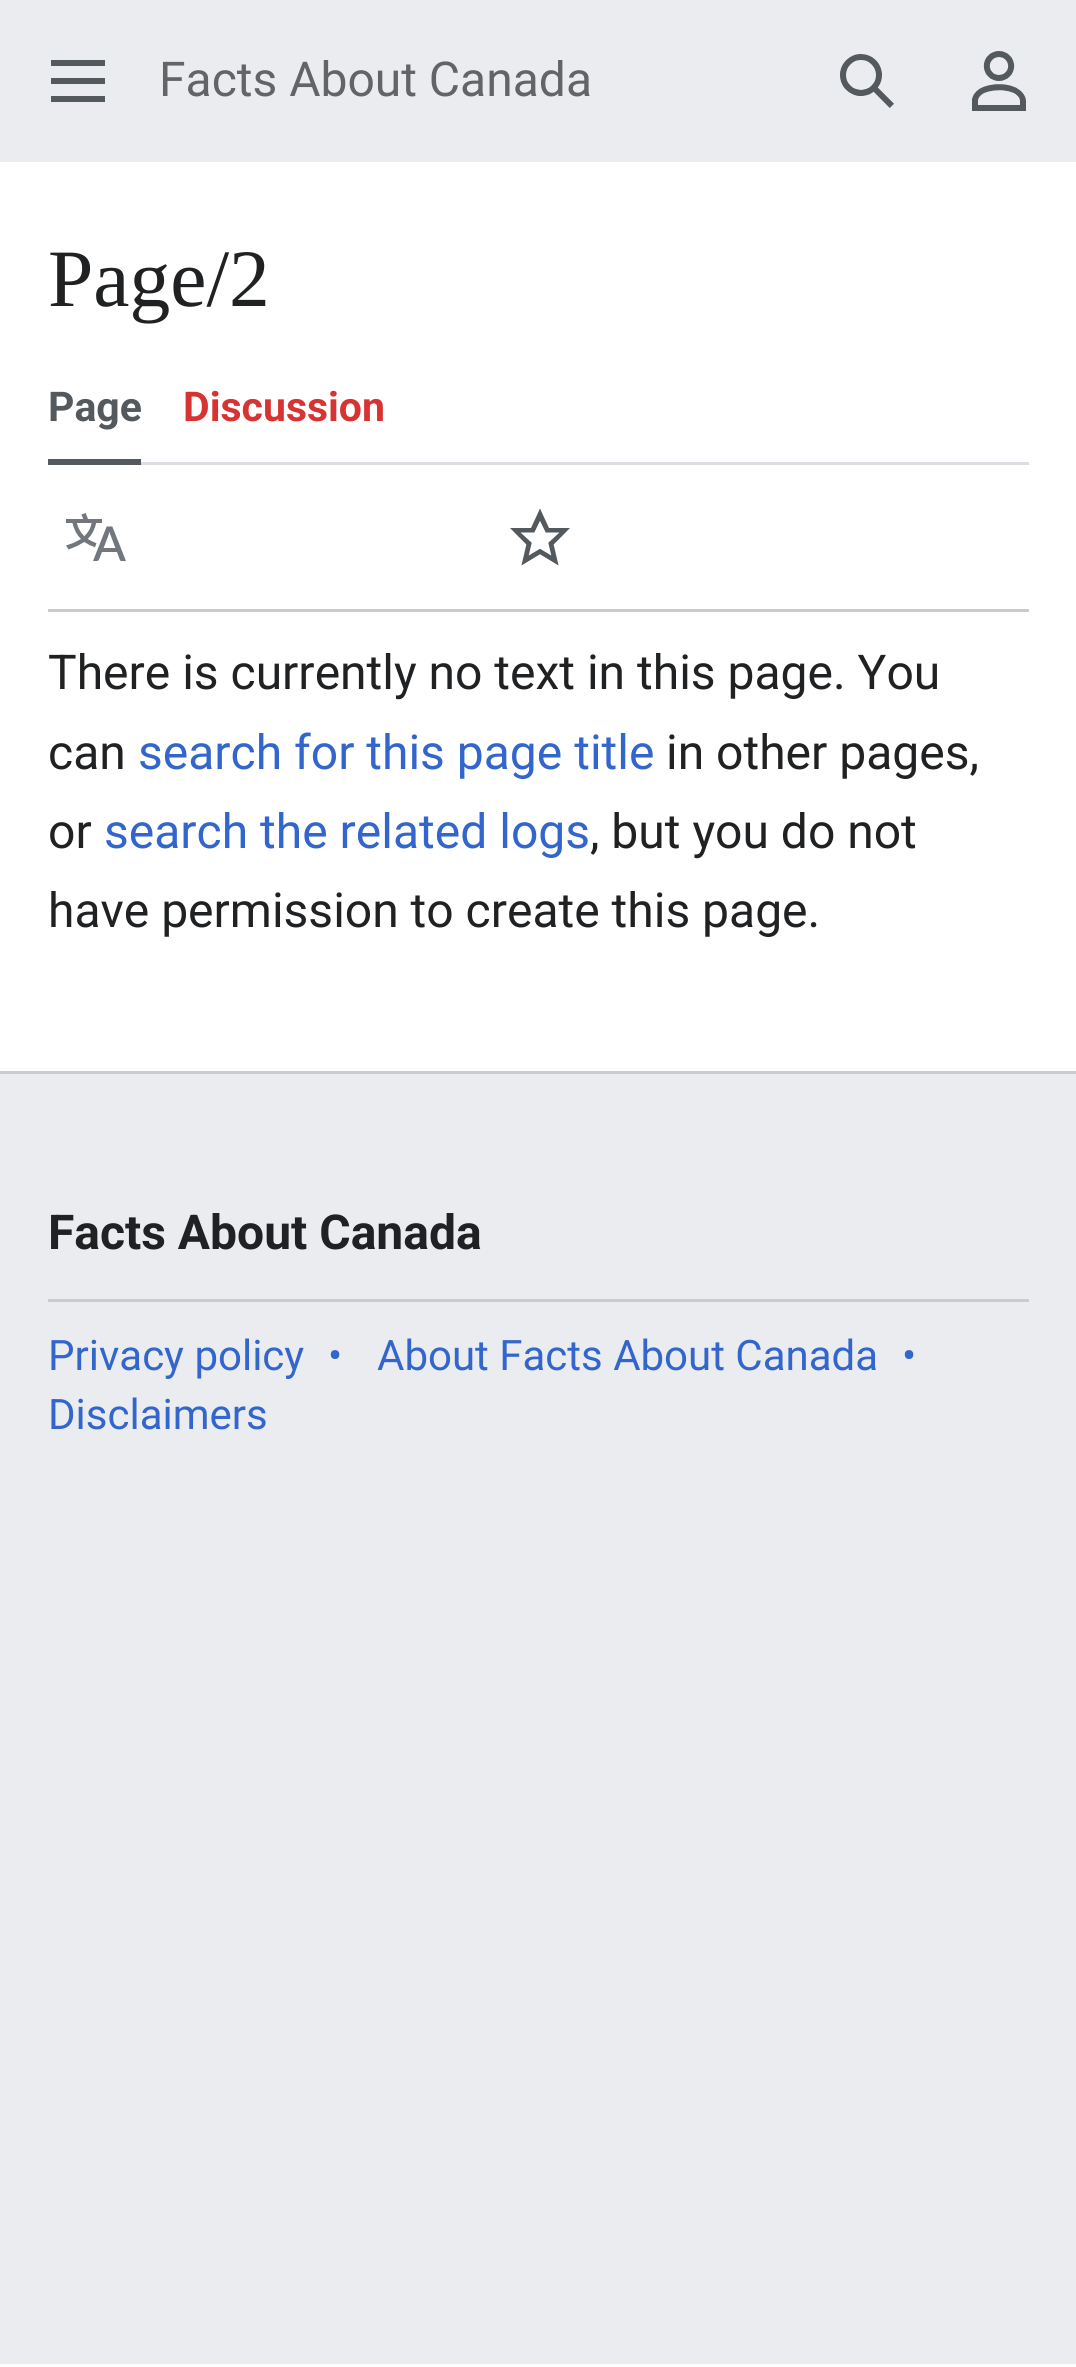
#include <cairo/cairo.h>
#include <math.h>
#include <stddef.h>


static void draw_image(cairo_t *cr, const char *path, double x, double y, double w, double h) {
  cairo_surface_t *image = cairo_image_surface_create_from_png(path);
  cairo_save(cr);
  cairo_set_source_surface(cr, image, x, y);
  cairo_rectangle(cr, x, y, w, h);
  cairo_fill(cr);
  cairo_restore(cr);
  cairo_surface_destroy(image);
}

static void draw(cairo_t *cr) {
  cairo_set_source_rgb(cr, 1, 1, 1);
  cairo_paint(cr);
  cairo_set_source_rgb(cr, 234 / 255.0, 236 / 255.0, 240 / 255.0);
  cairo_rectangle(cr, 0, 0, 1076, 2364);
  cairo_fill(cr);
  draw_image(cr, "images/1.png", 51, 60, 54, 42);
  draw_image(cr, "images/2.png", 840, 54, 54, 54);
  draw_image(cr, "images/3.png", 972, 51, 54, 60);
  cairo_set_source_rgb(cr, 1, 1, 1);
  cairo_rectangle(cr, 0, 162, 1076, 909);
  cairo_fill(cr);
  cairo_set_source_rgb(cr, 84 / 255.0, 89 / 255.0, 93 / 255.0);
  cairo_rectangle(cr, 48, 459, 93, 6);
  cairo_fill(cr);
  cairo_set_source_rgb(cr, 218 / 255.0, 221 / 255.0, 227 / 255.0);
  cairo_rectangle(cr, 141, 462, 888, 3);
  cairo_fill(cr);
  cairo_set_source_rgb(cr, 200 / 255.0, 204 / 255.0, 209 / 255.0);
  cairo_rectangle(cr, 48, 609, 981, 3);
  cairo_fill(cr);
  draw_image(cr, "images/4.png", 66, 513, 60, 48);
  draw_image(cr, "images/5.png", 510, 508, 60, 58);
  cairo_rectangle(cr, 0, 1071, 1076, 3);
  cairo_fill(cr);
  cairo_rectangle(cr, 48, 1299, 981, 3);
  cairo_fill(cr);
  cairo_select_font_face(cr, "Roboto", CAIRO_FONT_SLANT_NORMAL, CAIRO_FONT_WEIGHT_NORMAL);
  cairo_set_font_size(cr, 48);
  cairo_set_source_rgb(cr, 99 / 255.0, 100 / 255.0, 102 / 255.0);
  cairo_move_to(cr, 159, 96);
  cairo_show_text(cr, "Facts About Canada");
  cairo_select_font_face(cr, "Liberation Serif", CAIRO_FONT_SLANT_NORMAL, CAIRO_FONT_WEIGHT_NORMAL);
  cairo_set_font_size(cr, 81.5);
  cairo_set_source_rgb(cr, 32 / 255.0, 33 / 255.0, 34 / 255.0);
  cairo_move_to(cr, 48, 306);
  cairo_show_text(cr, "Page/2");
  cairo_select_font_face(cr, "Roboto", CAIRO_FONT_SLANT_NORMAL, CAIRO_FONT_WEIGHT_BOLD);
  cairo_set_font_size(cr, 41);
  cairo_set_source_rgb(cr, 84 / 255.0, 89 / 255.0, 93 / 255.0);
  cairo_move_to(cr, 48, 421);
  cairo_show_text(cr, "Page");
  cairo_set_source_rgb(cr, 215 / 255.0, 51 / 255.0, 51 / 255.0);
  cairo_move_to(cr, 183, 421);
  cairo_show_text(cr, "Discussion");
  cairo_select_font_face(cr, "Roboto", CAIRO_FONT_SLANT_NORMAL, CAIRO_FONT_WEIGHT_NORMAL);
  cairo_set_font_size(cr, 48);
  cairo_set_source_rgb(cr, 32 / 255.0, 33 / 255.0, 34 / 255.0);
  cairo_move_to(cr, 48, 689);
  cairo_show_text(cr, "There is currently no text in this page. You");
  cairo_move_to(cr, 48, 769);
  cairo_show_text(cr, "can");
  cairo_set_source_rgb(cr, 51 / 255.0, 102 / 255.0, 204 / 255.0);
  cairo_move_to(cr, 138, 769);
  cairo_show_text(cr, "search for this page title");
  cairo_set_source_rgb(cr, 32 / 255.0, 33 / 255.0, 34 / 255.0);
  cairo_move_to(cr, 666, 769);
  cairo_show_text(cr, "in other pages,");
  cairo_move_to(cr, 48, 848);
  cairo_show_text(cr, "or");
  cairo_set_source_rgb(cr, 51 / 255.0, 102 / 255.0, 204 / 255.0);
  cairo_move_to(cr, 104, 848);
  cairo_show_text(cr, "search the related logs");
  cairo_set_source_rgb(cr, 32 / 255.0, 33 / 255.0, 34 / 255.0);
  cairo_move_to(cr, 590, 848);
  cairo_show_text(cr, ", but you do not");
  cairo_move_to(cr, 48, 927);
  cairo_show_text(cr, "have permission to create this page.");
  cairo_select_font_face(cr, "Roboto", CAIRO_FONT_SLANT_NORMAL, CAIRO_FONT_WEIGHT_BOLD);
  cairo_move_to(cr, 48, 1249);
  cairo_show_text(cr, "Facts About Canada");
  cairo_select_font_face(cr, "Roboto", CAIRO_FONT_SLANT_NORMAL, CAIRO_FONT_WEIGHT_NORMAL);
  cairo_set_font_size(cr, 42);
  cairo_set_source_rgb(cr, 51 / 255.0, 102 / 255.0, 204 / 255.0);
  cairo_move_to(cr, 48, 1370);
  cairo_show_text(cr, "Privacy policy");
  cairo_move_to(cr, 328, 1370);
  cairo_show_text(cr, "•");
  cairo_move_to(cr, 377, 1370);
  cairo_show_text(cr, "About Facts About Canada");
  cairo_move_to(cr, 902, 1370);
  cairo_show_text(cr, "•");
  cairo_move_to(cr, 48, 1429);
  cairo_show_text(cr, "Disclaimers");
}

int main(void) {
  cairo_surface_t *surface = cairo_image_surface_create(CAIRO_FORMAT_RGB24, 1076, 2367);
  cairo_t *cr = cairo_create(surface);
  cairo_font_options_t *options = cairo_font_options_create();
  cairo_font_options_set_hint_metrics(options, CAIRO_HINT_METRICS_OFF);
  cairo_font_options_set_hint_style(options, CAIRO_HINT_STYLE_NONE);
  cairo_set_font_options(cr, options);
  cairo_set_miter_limit(cr, 4);
  draw(cr);
  cairo_surface_write_to_png(surface, "out.png");
  cairo_font_options_destroy(options);
  cairo_destroy(cr);
  cairo_surface_destroy(surface);
  return 0;
}
